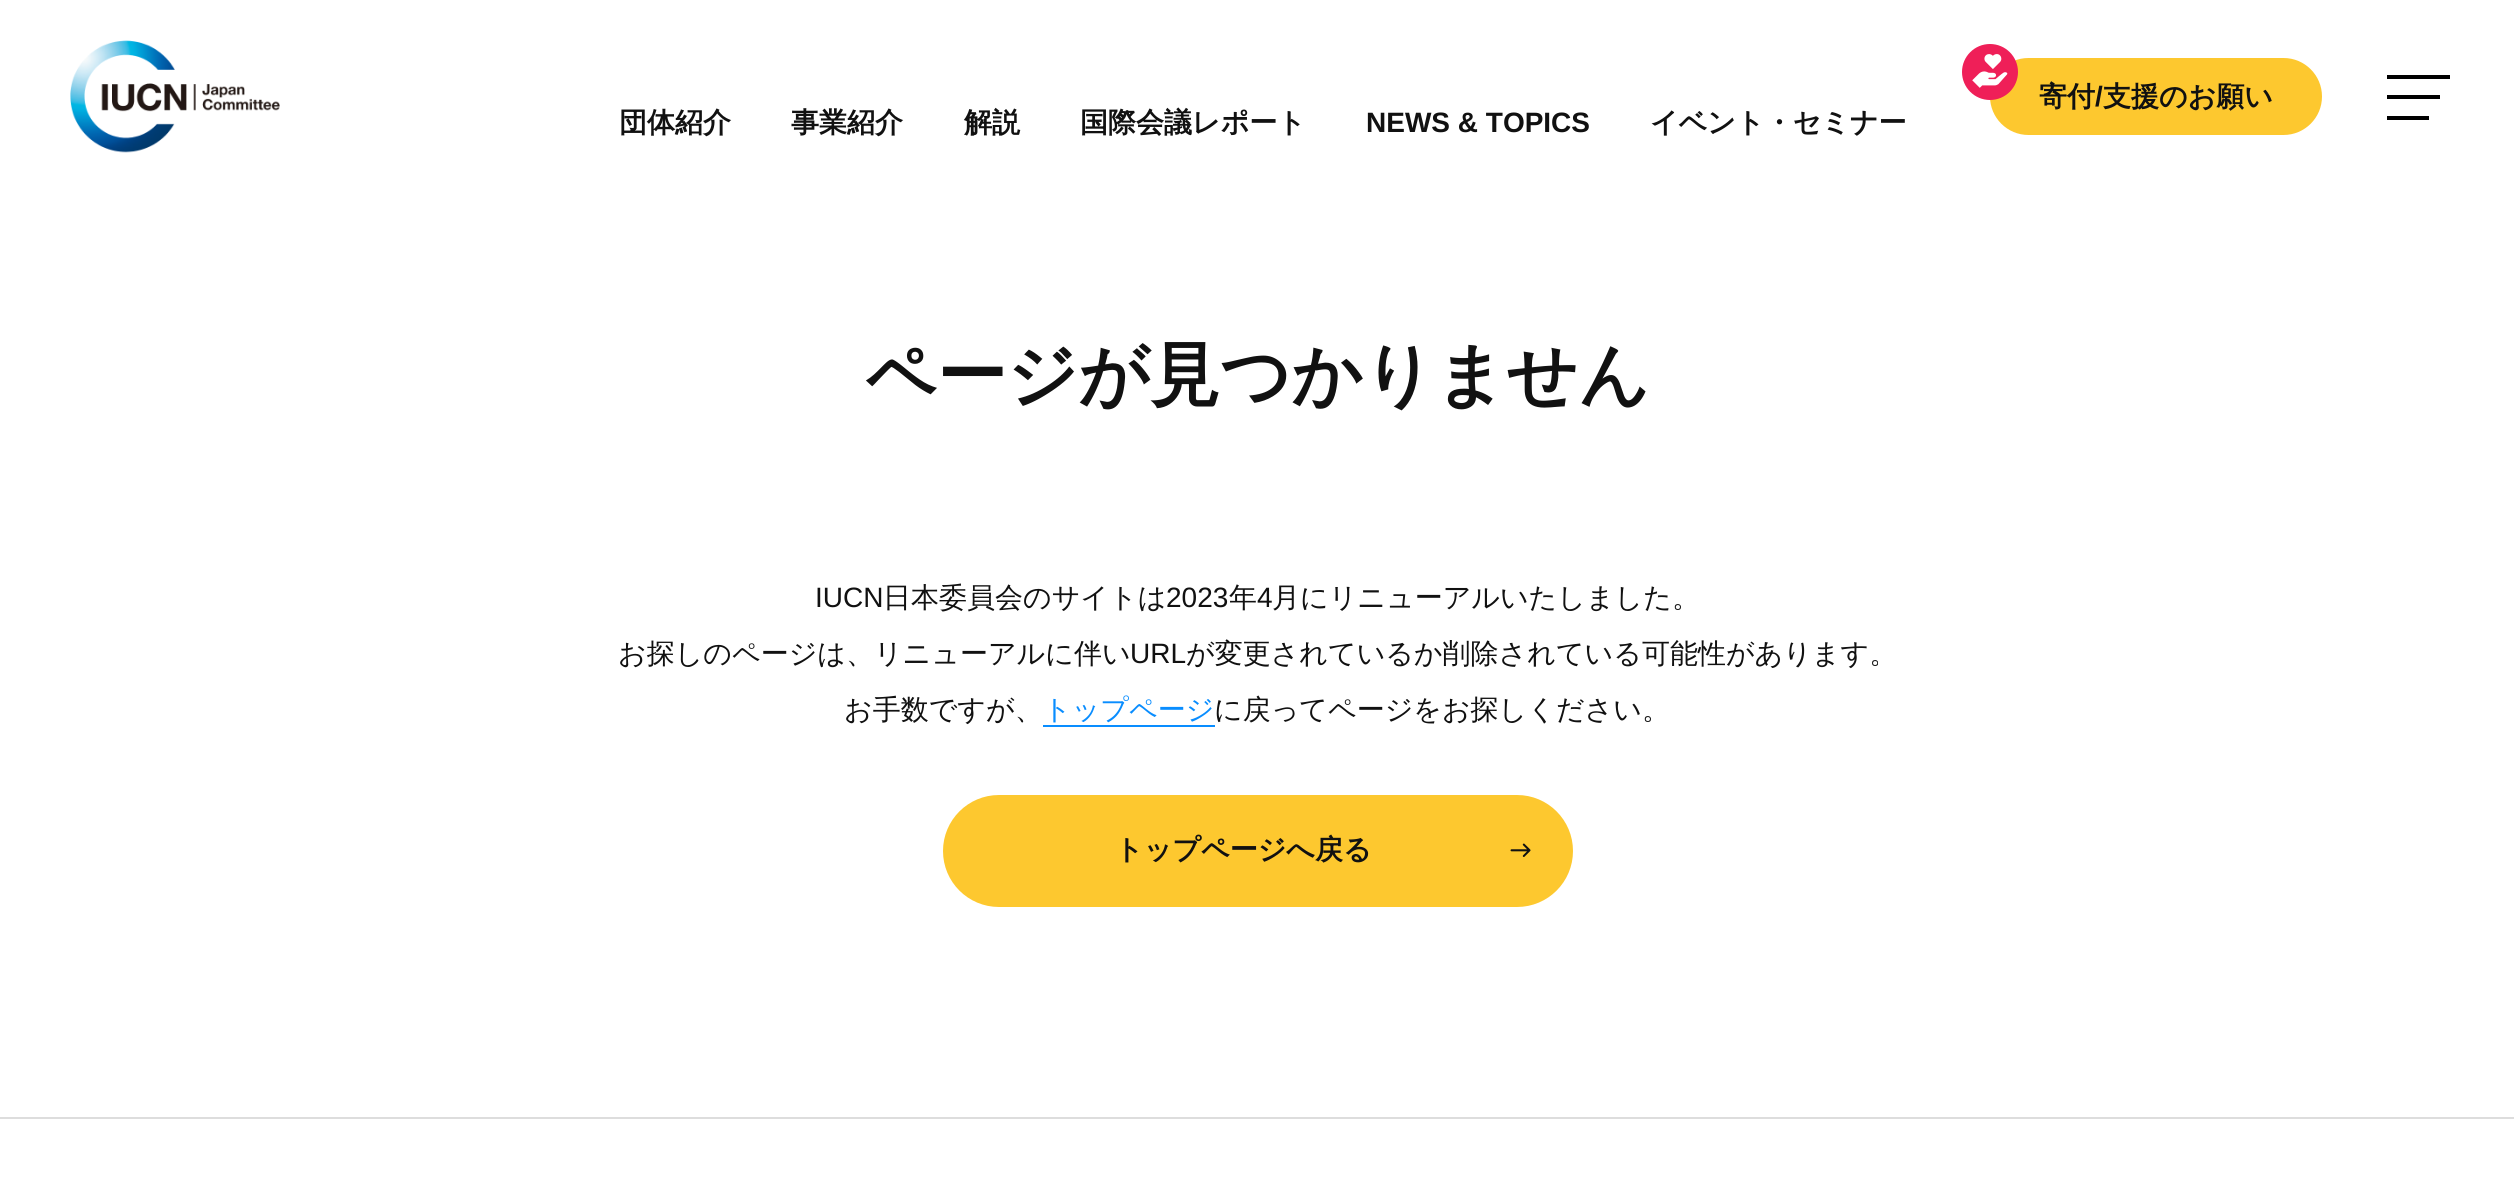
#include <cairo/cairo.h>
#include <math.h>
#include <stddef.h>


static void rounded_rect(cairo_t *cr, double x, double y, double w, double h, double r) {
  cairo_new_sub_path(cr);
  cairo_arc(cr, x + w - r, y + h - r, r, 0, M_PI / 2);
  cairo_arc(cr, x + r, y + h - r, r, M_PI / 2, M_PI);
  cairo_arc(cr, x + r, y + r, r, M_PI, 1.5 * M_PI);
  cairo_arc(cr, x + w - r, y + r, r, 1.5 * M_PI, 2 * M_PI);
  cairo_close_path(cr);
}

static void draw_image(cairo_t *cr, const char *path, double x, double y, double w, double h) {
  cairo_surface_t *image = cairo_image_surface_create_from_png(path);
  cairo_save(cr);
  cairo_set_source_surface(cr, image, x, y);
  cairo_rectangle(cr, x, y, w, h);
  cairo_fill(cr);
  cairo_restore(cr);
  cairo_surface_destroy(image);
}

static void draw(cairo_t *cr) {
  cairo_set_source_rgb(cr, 1, 1, 1);
  cairo_paint(cr);
  draw_image(cr, "images/1.png", 70, 40, 210, 113);
  cairo_set_source_rgb(cr, 253 / 255.0, 200 / 255.0, 47 / 255.0);
  rounded_rect(cr, 1990, 58, 332, 77, 38.5);
  cairo_fill(cr);
  cairo_set_source_rgb(cr, 239 / 255.0, 31 / 255.0, 88 / 255.0);
  cairo_arc(cr, 1990, 72, 28, 0, 2 * M_PI);
  cairo_fill(cr);
  draw_image(cr, "images/2.png", 1972, 54, 36, 34);
  cairo_set_source_rgb(cr, 0, 0, 0);
  cairo_rectangle(cr, 2387, 75, 63, 4);
  cairo_fill(cr);
  cairo_rectangle(cr, 2387, 95, 53, 4);
  cairo_fill(cr);
  cairo_rectangle(cr, 2387, 116, 42, 4);
  cairo_fill(cr);
  cairo_set_source_rgb(cr, 9 / 255.0, 141 / 255.0, 1);
  cairo_rectangle(cr, 1043, 725, 172, 2);
  cairo_fill(cr);
  cairo_set_source_rgb(cr, 253 / 255.0, 200 / 255.0, 47 / 255.0);
  rounded_rect(cr, 943, 795, 630, 112, 56);
  cairo_fill(cr);
  draw_image(cr, "images/3.png", 1510, 843, 21, 14);
  cairo_set_source_rgb(cr, 221 / 255.0, 221 / 255.0, 221 / 255.0);
  cairo_rectangle(cr, 0, 1117, 2514, 2);
  cairo_fill(cr);
  cairo_select_font_face(cr, "WenQuanYi Zen Hei", CAIRO_FONT_SLANT_NORMAL, CAIRO_FONT_WEIGHT_BOLD);
  cairo_set_font_size(cr, 28);
  cairo_set_source_rgb(cr, 17 / 255.0, 17 / 255.0, 17 / 255.0);
  cairo_move_to(cr, 2039, 106);
  cairo_show_text(cr, "寄付");
  cairo_select_font_face(cr, "Liberation Sans", CAIRO_FONT_SLANT_NORMAL, CAIRO_FONT_WEIGHT_BOLD);
  cairo_move_to(cr, 2095, 106);
  cairo_show_text(cr, "/");
  cairo_select_font_face(cr, "WenQuanYi Zen Hei", CAIRO_FONT_SLANT_NORMAL, CAIRO_FONT_WEIGHT_BOLD);
  cairo_move_to(cr, 2103, 106);
  cairo_show_text(cr, "支援のお願い");
  cairo_move_to(cr, 619, 132);
  cairo_show_text(cr, "団体紹介");
  cairo_move_to(cr, 791, 132);
  cairo_show_text(cr, "事業紹介");
  cairo_move_to(cr, 964, 132);
  cairo_show_text(cr, "解説");
  cairo_move_to(cr, 1080, 132);
  cairo_show_text(cr, "国際会議レポート");
  cairo_select_font_face(cr, "Liberation Sans", CAIRO_FONT_SLANT_NORMAL, CAIRO_FONT_WEIGHT_BOLD);
  cairo_move_to(cr, 1366, 132);
  cairo_show_text(cr, "NEWS & TOPICS");
  cairo_select_font_face(cr, "WenQuanYi Zen Hei", CAIRO_FONT_SLANT_NORMAL, CAIRO_FONT_WEIGHT_BOLD);
  cairo_move_to(cr, 1650, 132);
  cairo_show_text(cr, "イベント・セミナー");
  cairo_set_font_size(cr, 70);
  cairo_move_to(cr, 865, 399);
  cairo_show_text(cr, "ページが見つかりません");
  cairo_select_font_face(cr, "Liberation Sans", CAIRO_FONT_SLANT_NORMAL, CAIRO_FONT_WEIGHT_NORMAL);
  cairo_set_font_size(cr, 28);
  cairo_move_to(cr, 815, 607);
  cairo_show_text(cr, "IUCN");
  cairo_select_font_face(cr, "WenQuanYi Zen Hei Medium", CAIRO_FONT_SLANT_NORMAL, CAIRO_FONT_WEIGHT_NORMAL);
  cairo_move_to(cr, 883, 607);
  cairo_show_text(cr, "日本委員会のサイトは");
  cairo_select_font_face(cr, "Liberation Sans", CAIRO_FONT_SLANT_NORMAL, CAIRO_FONT_WEIGHT_NORMAL);
  cairo_move_to(cr, 1166, 607);
  cairo_show_text(cr, "2023");
  cairo_select_font_face(cr, "WenQuanYi Zen Hei Medium", CAIRO_FONT_SLANT_NORMAL, CAIRO_FONT_WEIGHT_NORMAL);
  cairo_move_to(cr, 1229, 607);
  cairo_show_text(cr, "年");
  cairo_select_font_face(cr, "Liberation Sans", CAIRO_FONT_SLANT_NORMAL, CAIRO_FONT_WEIGHT_NORMAL);
  cairo_move_to(cr, 1257, 607);
  cairo_show_text(cr, "4");
  cairo_select_font_face(cr, "WenQuanYi Zen Hei Medium", CAIRO_FONT_SLANT_NORMAL, CAIRO_FONT_WEIGHT_NORMAL);
  cairo_move_to(cr, 1272, 607);
  cairo_show_text(cr, "月にリニューアルいたしました。");
  cairo_move_to(cr, 618, 663);
  cairo_show_text(cr, "お探しのページは、リニューアルに伴い");
  cairo_select_font_face(cr, "Liberation Sans", CAIRO_FONT_SLANT_NORMAL, CAIRO_FONT_WEIGHT_NORMAL);
  cairo_move_to(cr, 1130, 663);
  cairo_show_text(cr, "URL");
  cairo_select_font_face(cr, "WenQuanYi Zen Hei Medium", CAIRO_FONT_SLANT_NORMAL, CAIRO_FONT_WEIGHT_NORMAL);
  cairo_move_to(cr, 1186, 663);
  cairo_show_text(cr, "が変更されているか削除されている可能性があります。");
  cairo_move_to(cr, 844, 719);
  cairo_show_text(cr, "お手数ですが、");
  cairo_set_source_rgb(cr, 9 / 255.0, 141 / 255.0, 1);
  cairo_move_to(cr, 1043, 719);
  cairo_show_text(cr, "トップページ");
  cairo_set_source_rgb(cr, 17 / 255.0, 17 / 255.0, 17 / 255.0);
  cairo_move_to(cr, 1214, 719);
  cairo_show_text(cr, "に戻ってページをお探しください。");
  cairo_select_font_face(cr, "WenQuanYi Zen Hei", CAIRO_FONT_SLANT_NORMAL, CAIRO_FONT_WEIGHT_BOLD);
  cairo_move_to(cr, 1115, 859);
  cairo_show_text(cr, "トップページへ戻る");
}

int main(void) {
  cairo_surface_t *surface = cairo_image_surface_create(CAIRO_FORMAT_RGB24, 2514, 1194);
  cairo_t *cr = cairo_create(surface);
  cairo_font_options_t *options = cairo_font_options_create();
  cairo_font_options_set_hint_metrics(options, CAIRO_HINT_METRICS_OFF);
  cairo_font_options_set_hint_style(options, CAIRO_HINT_STYLE_NONE);
  cairo_set_font_options(cr, options);
  cairo_set_miter_limit(cr, 4);
  draw(cr);
  cairo_surface_write_to_png(surface, "out.png");
  cairo_font_options_destroy(options);
  cairo_destroy(cr);
  cairo_surface_destroy(surface);
  return 0;
}
